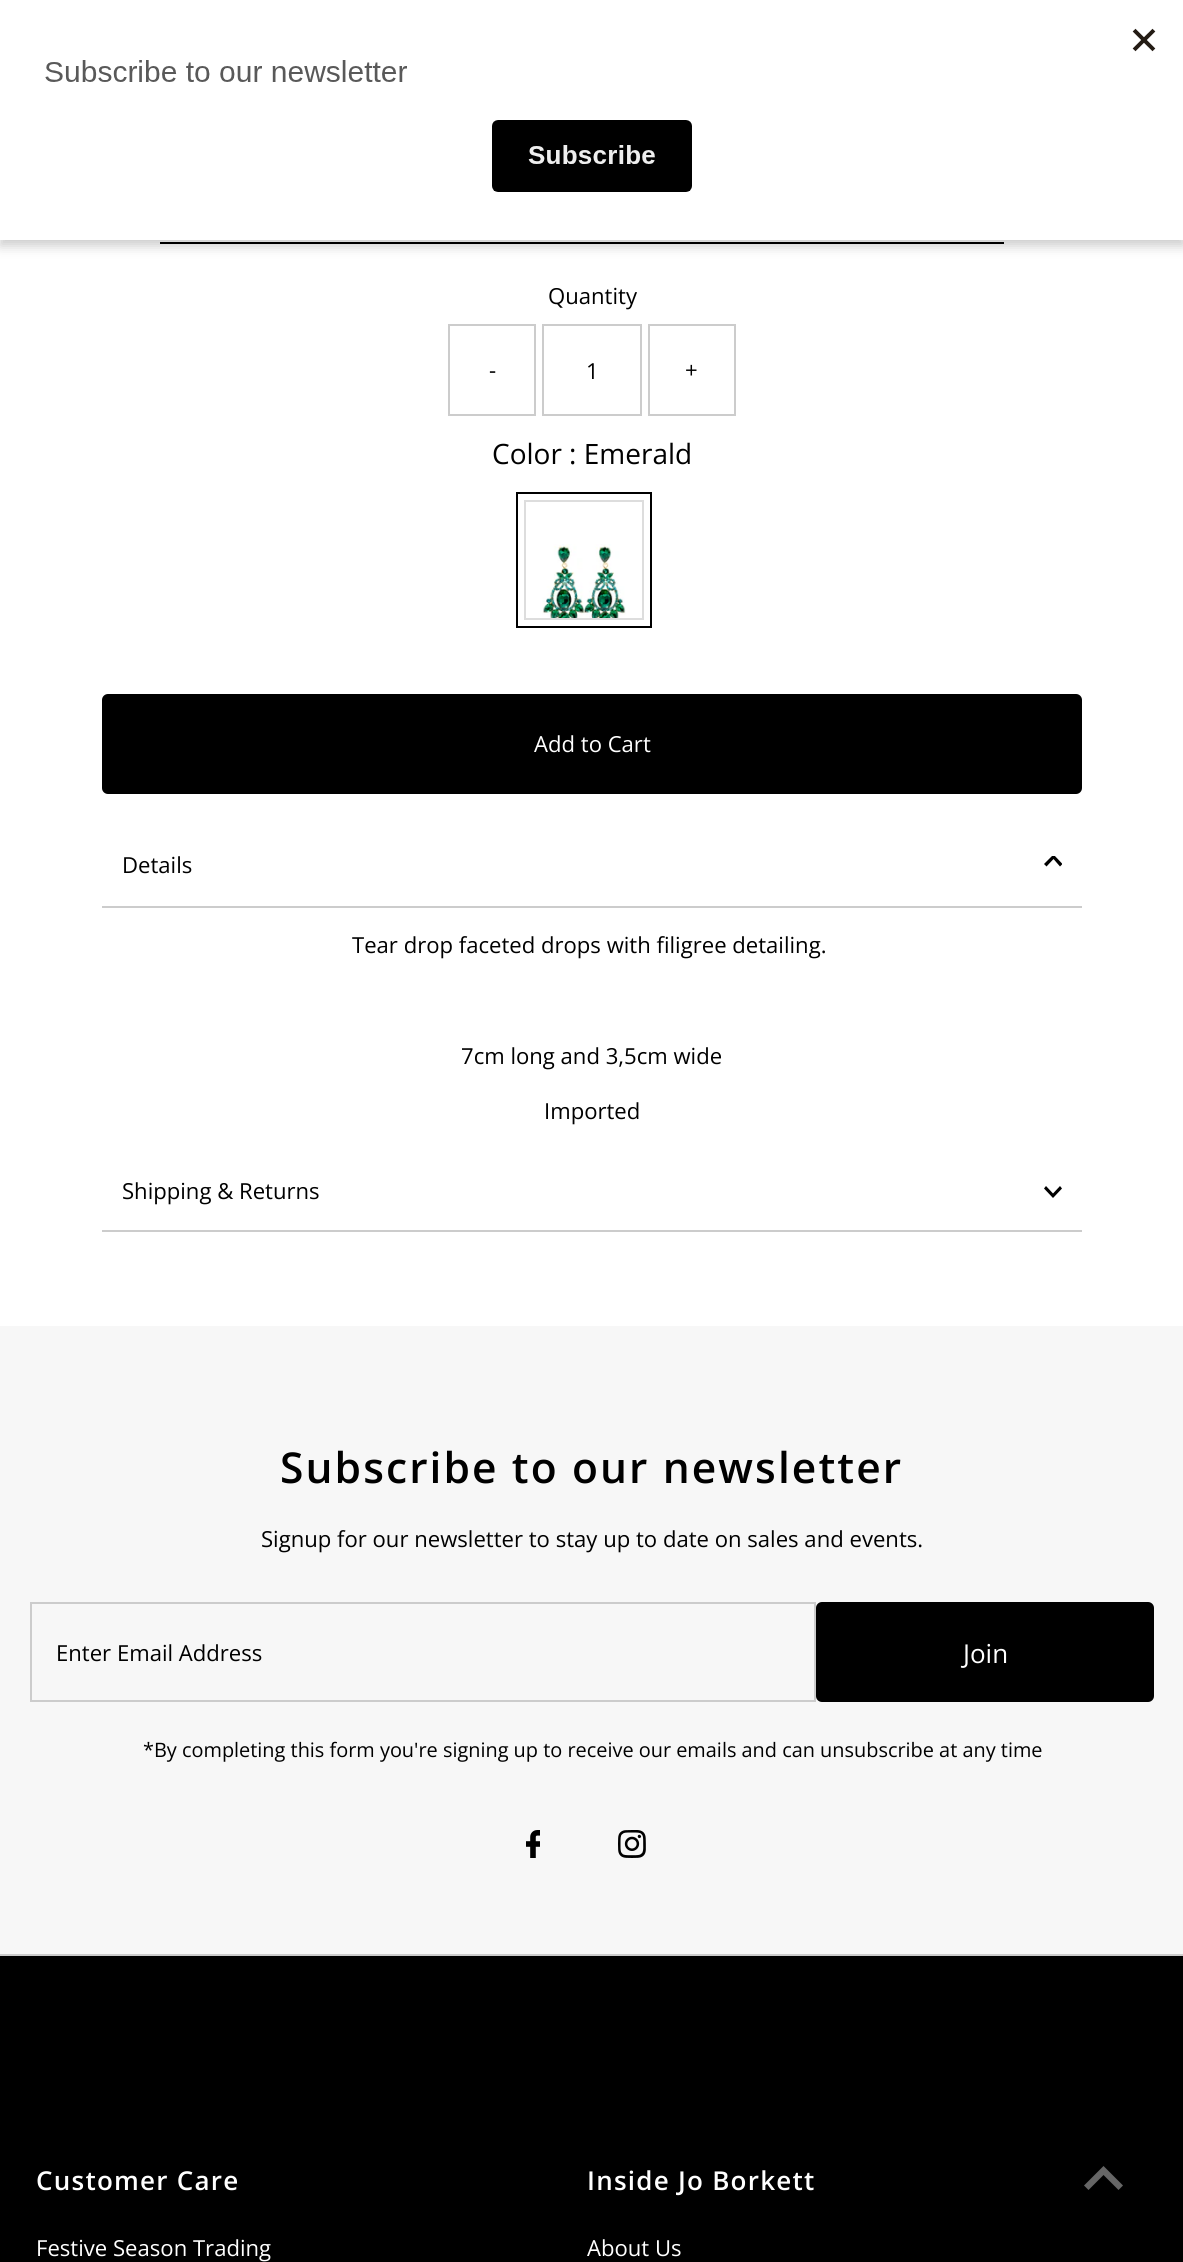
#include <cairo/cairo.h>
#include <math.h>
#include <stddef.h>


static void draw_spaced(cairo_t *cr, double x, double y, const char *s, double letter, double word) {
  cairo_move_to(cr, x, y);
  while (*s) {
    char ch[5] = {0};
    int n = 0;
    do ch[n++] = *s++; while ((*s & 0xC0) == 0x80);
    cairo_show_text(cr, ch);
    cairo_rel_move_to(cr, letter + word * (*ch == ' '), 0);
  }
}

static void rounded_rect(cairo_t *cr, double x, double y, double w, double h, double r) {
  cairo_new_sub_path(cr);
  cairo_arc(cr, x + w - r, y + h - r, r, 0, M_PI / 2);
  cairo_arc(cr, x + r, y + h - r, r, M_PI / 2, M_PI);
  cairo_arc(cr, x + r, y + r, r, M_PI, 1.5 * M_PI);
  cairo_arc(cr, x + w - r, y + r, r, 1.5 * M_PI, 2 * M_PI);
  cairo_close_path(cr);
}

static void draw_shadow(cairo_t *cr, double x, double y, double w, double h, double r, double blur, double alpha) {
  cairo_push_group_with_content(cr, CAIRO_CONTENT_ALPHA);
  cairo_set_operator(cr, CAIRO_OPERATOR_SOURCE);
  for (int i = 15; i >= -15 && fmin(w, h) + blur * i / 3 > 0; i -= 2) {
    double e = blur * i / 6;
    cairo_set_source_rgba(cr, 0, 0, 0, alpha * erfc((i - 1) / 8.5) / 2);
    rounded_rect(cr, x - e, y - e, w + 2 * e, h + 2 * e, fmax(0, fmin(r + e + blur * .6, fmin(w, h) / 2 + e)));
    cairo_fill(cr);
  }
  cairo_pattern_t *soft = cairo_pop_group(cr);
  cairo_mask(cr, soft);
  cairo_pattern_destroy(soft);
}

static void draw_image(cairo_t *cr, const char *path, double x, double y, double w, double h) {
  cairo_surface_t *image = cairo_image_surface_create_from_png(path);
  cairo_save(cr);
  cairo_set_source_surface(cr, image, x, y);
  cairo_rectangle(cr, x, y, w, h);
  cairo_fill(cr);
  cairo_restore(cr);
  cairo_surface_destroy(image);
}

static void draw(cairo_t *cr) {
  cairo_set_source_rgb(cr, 1, 1, 1);
  cairo_paint(cr);
  cairo_set_source_rgb(cr, 0, 0, 0);
  cairo_rectangle(cr, 160, 242, 844, 2);
  cairo_fill(cr);
  cairo_set_source_rgb(cr, 0, 0, 0);
  draw_shadow(cr, 0, 6, 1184, 240, 0, 6, 0.2);
  cairo_set_source_rgb(cr, 1, 1, 1);
  cairo_rectangle(cr, 0, 0, 1183, 240);
  cairo_fill(cr);
  draw_image(cr, "images/1.png", 45, 28, 1111, 164);
  cairo_rectangle(cr, 449, 325, 86, 90);
  cairo_set_source_rgb(cr, 204 / 255.0, 204 / 255.0, 204 / 255.0);
  cairo_stroke(cr);
  cairo_rectangle(cr, 543, 325, 98, 90);
  cairo_stroke(cr);
  cairo_rectangle(cr, 649, 325, 86, 90);
  cairo_stroke(cr);
  cairo_rectangle(cr, 517, 493, 134, 134);
  cairo_set_source_rgb(cr, 0, 0, 0);
  cairo_stroke(cr);
  draw_image(cr, "images/2.png", 542, 544, 84, 74);
  cairo_rectangle(cr, 525, 501, 118, 118);
  cairo_set_source_rgb(cr, 221 / 255.0, 221 / 255.0, 221 / 255.0);
  cairo_stroke(cr);
  cairo_set_source_rgb(cr, 0, 0, 0);
  rounded_rect(cr, 102, 694, 980, 100, 6);
  cairo_fill(cr);
  cairo_set_source_rgb(cr, 204 / 255.0, 204 / 255.0, 204 / 255.0);
  cairo_rectangle(cr, 102, 906, 980, 2);
  cairo_fill(cr);
  cairo_save(cr);
  cairo_rectangle(cr, 1044, 856, 18, 12);
  cairo_clip(cr);
  cairo_set_source_rgb(cr, 0, 0, 0);
  cairo_new_path(cr);
  cairo_move_to(cr, 1046.5, 866.5);
  cairo_line_to(cr, 1053.5, 859);
  cairo_line_to(cr, 1060, 866.5);
  cairo_line_to(cr, 1062.5, 864);
  cairo_line_to(cr, 1053.5, 854.5);
  cairo_line_to(cr, 1044, 864);
  cairo_close_path(cr);
  cairo_fill(cr);
  cairo_restore(cr);
  cairo_rectangle(cr, 102, 1230, 980, 2);
  cairo_fill(cr);
  cairo_set_source_rgb(cr, 0, 0, 0);
  cairo_new_path(cr);
  cairo_move_to(cr, 1060, 1186);
  cairo_line_to(cr, 1053, 1193.5);
  cairo_line_to(cr, 1046, 1186);
  cairo_line_to(cr, 1044, 1188.5);
  cairo_line_to(cr, 1053, 1198);
  cairo_line_to(cr, 1062, 1188.5);
  cairo_close_path(cr);
  cairo_fill(cr);
  cairo_set_source_rgb(cr, 247 / 255.0, 247 / 255.0, 247 / 255.0);
  cairo_rectangle(cr, 0, 1326, 1183, 628);
  cairo_fill(cr);
  cairo_rectangle(cr, 31, 1603, 784, 98);
  cairo_set_source_rgb(cr, 204 / 255.0, 204 / 255.0, 204 / 255.0);
  cairo_stroke(cr);
  cairo_set_source_rgb(cr, 0, 0, 0);
  rounded_rect(cr, 816, 1602, 338, 100, 6);
  cairo_fill(cr);
  draw_image(cr, "images/3.png", 526, 1830, 14, 28);
  draw_image(cr, "images/4.png", 618, 1830, 28, 28);
  cairo_rectangle(cr, 0, 1956, 1183, 306);
  cairo_fill(cr);
  cairo_set_source_rgb(cr, 204 / 255.0, 204 / 255.0, 204 / 255.0);
  cairo_rectangle(cr, 0, 1954, 1183, 2);
  cairo_fill(cr);
  cairo_set_source_rgb(cr, 102 / 255.0, 102 / 255.0, 102 / 255.0);
  cairo_new_path(cr);
  cairo_move_to(cr, 1103.5, 2166);
  cairo_line_to(cr, 1084, 2185.5);
  cairo_line_to(cr, 1088.5, 2190);
  cairo_line_to(cr, 1103.5, 2175);
  cairo_line_to(cr, 1118.5, 2190);
  cairo_line_to(cr, 1123, 2185.5);
  cairo_close_path(cr);
  cairo_fill(cr);
  cairo_select_font_face(cr, "Open Sans", CAIRO_FONT_SLANT_NORMAL, CAIRO_FONT_WEIGHT_NORMAL);
  cairo_set_font_size(cr, 22.1);
  cairo_set_source_rgb(cr, 0, 0, 0);
  cairo_move_to(cr, 548, 304);
  cairo_show_text(cr, "Quantity");
  cairo_move_to(cr, 489, 378);
  cairo_show_text(cr, "-");
  cairo_move_to(cr, 586, 379);
  cairo_show_text(cr, "1");
  cairo_move_to(cr, 685, 378);
  cairo_show_text(cr, "+");
  cairo_set_font_size(cr, 28);
  cairo_move_to(cr, 492, 464);
  cairo_show_text(cr, "Color : Emerald");
  cairo_set_font_size(cr, 22.1);
  cairo_set_source_rgb(cr, 1, 1, 1);
  cairo_move_to(cr, 534, 752);
  cairo_show_text(cr, "Add to Cart");
  cairo_set_source_rgb(cr, 0, 0, 0);
  cairo_move_to(cr, 122, 873);
  cairo_show_text(cr, "Details");
  cairo_move_to(cr, 352, 953);
  cairo_show_text(cr, "Tear drop faceted drops with filigree detailing.");
  cairo_move_to(cr, 461, 1064);
  cairo_show_text(cr, "7cm long and 3,5cm wide");
  cairo_move_to(cr, 544, 1119);
  cairo_show_text(cr, "Imported");
  cairo_move_to(cr, 122, 1199);
  cairo_show_text(cr, "Shipping & Returns");
  cairo_select_font_face(cr, "Open Sans SemiBold", CAIRO_FONT_SLANT_NORMAL, CAIRO_FONT_WEIGHT_NORMAL);
  cairo_set_font_size(cr, 42.5);
  draw_spaced(cr, 280, 1483, "Subscribe to our newsletter", 2.1, 0);
  cairo_select_font_face(cr, "Open Sans", CAIRO_FONT_SLANT_NORMAL, CAIRO_FONT_WEIGHT_NORMAL);
  cairo_set_font_size(cr, 22.1);
  cairo_move_to(cr, 261, 1547);
  cairo_show_text(cr, "Signup for our newsletter to stay up to date on sales and events.");
  cairo_move_to(cr, 56, 1661);
  cairo_show_text(cr, "Enter Email Address");
  cairo_set_font_size(cr, 26);
  cairo_set_source_rgb(cr, 1, 1, 1);
  cairo_move_to(cr, 963, 1663);
  cairo_show_text(cr, "Join");
  cairo_set_font_size(cr, 19.9);
  cairo_set_source_rgb(cr, 0, 0, 0);
  cairo_move_to(cr, 143, 1757);
  cairo_show_text(cr, "*By completing this form you're signing up to receive our emails and can unsubscribe at any time");
  cairo_select_font_face(cr, "Open Sans SemiBold", CAIRO_FONT_SLANT_NORMAL, CAIRO_FONT_WEIGHT_NORMAL);
  cairo_set_font_size(cr, 26);
  cairo_set_source_rgb(cr, 1, 1, 1);
  draw_spaced(cr, 36, 2190, "Customer Care", 1.25, 0);
  cairo_select_font_face(cr, "Open Sans", CAIRO_FONT_SLANT_NORMAL, CAIRO_FONT_WEIGHT_NORMAL);
  cairo_set_font_size(cr, 22.1);
  cairo_move_to(cr, 36, 2256);
  cairo_show_text(cr, "Festive Season Trading");
  cairo_select_font_face(cr, "Open Sans SemiBold", CAIRO_FONT_SLANT_NORMAL, CAIRO_FONT_WEIGHT_NORMAL);
  cairo_set_font_size(cr, 26);
  draw_spaced(cr, 587, 2190, "Inside Jo Borkett", 1.25, 0);
  cairo_select_font_face(cr, "Open Sans", CAIRO_FONT_SLANT_NORMAL, CAIRO_FONT_WEIGHT_NORMAL);
  cairo_set_font_size(cr, 22.1);
  cairo_move_to(cr, 587, 2256);
  cairo_show_text(cr, "About Us");
}

int main(void) {
  cairo_surface_t *surface = cairo_image_surface_create(CAIRO_FORMAT_RGB24, 1183, 2262);
  cairo_t *cr = cairo_create(surface);
  cairo_font_options_t *options = cairo_font_options_create();
  cairo_font_options_set_hint_metrics(options, CAIRO_HINT_METRICS_OFF);
  cairo_font_options_set_hint_style(options, CAIRO_HINT_STYLE_NONE);
  cairo_set_font_options(cr, options);
  cairo_set_miter_limit(cr, 4);
  draw(cr);
  cairo_surface_write_to_png(surface, "out.png");
  cairo_font_options_destroy(options);
  cairo_destroy(cr);
  cairo_surface_destroy(surface);
  return 0;
}
